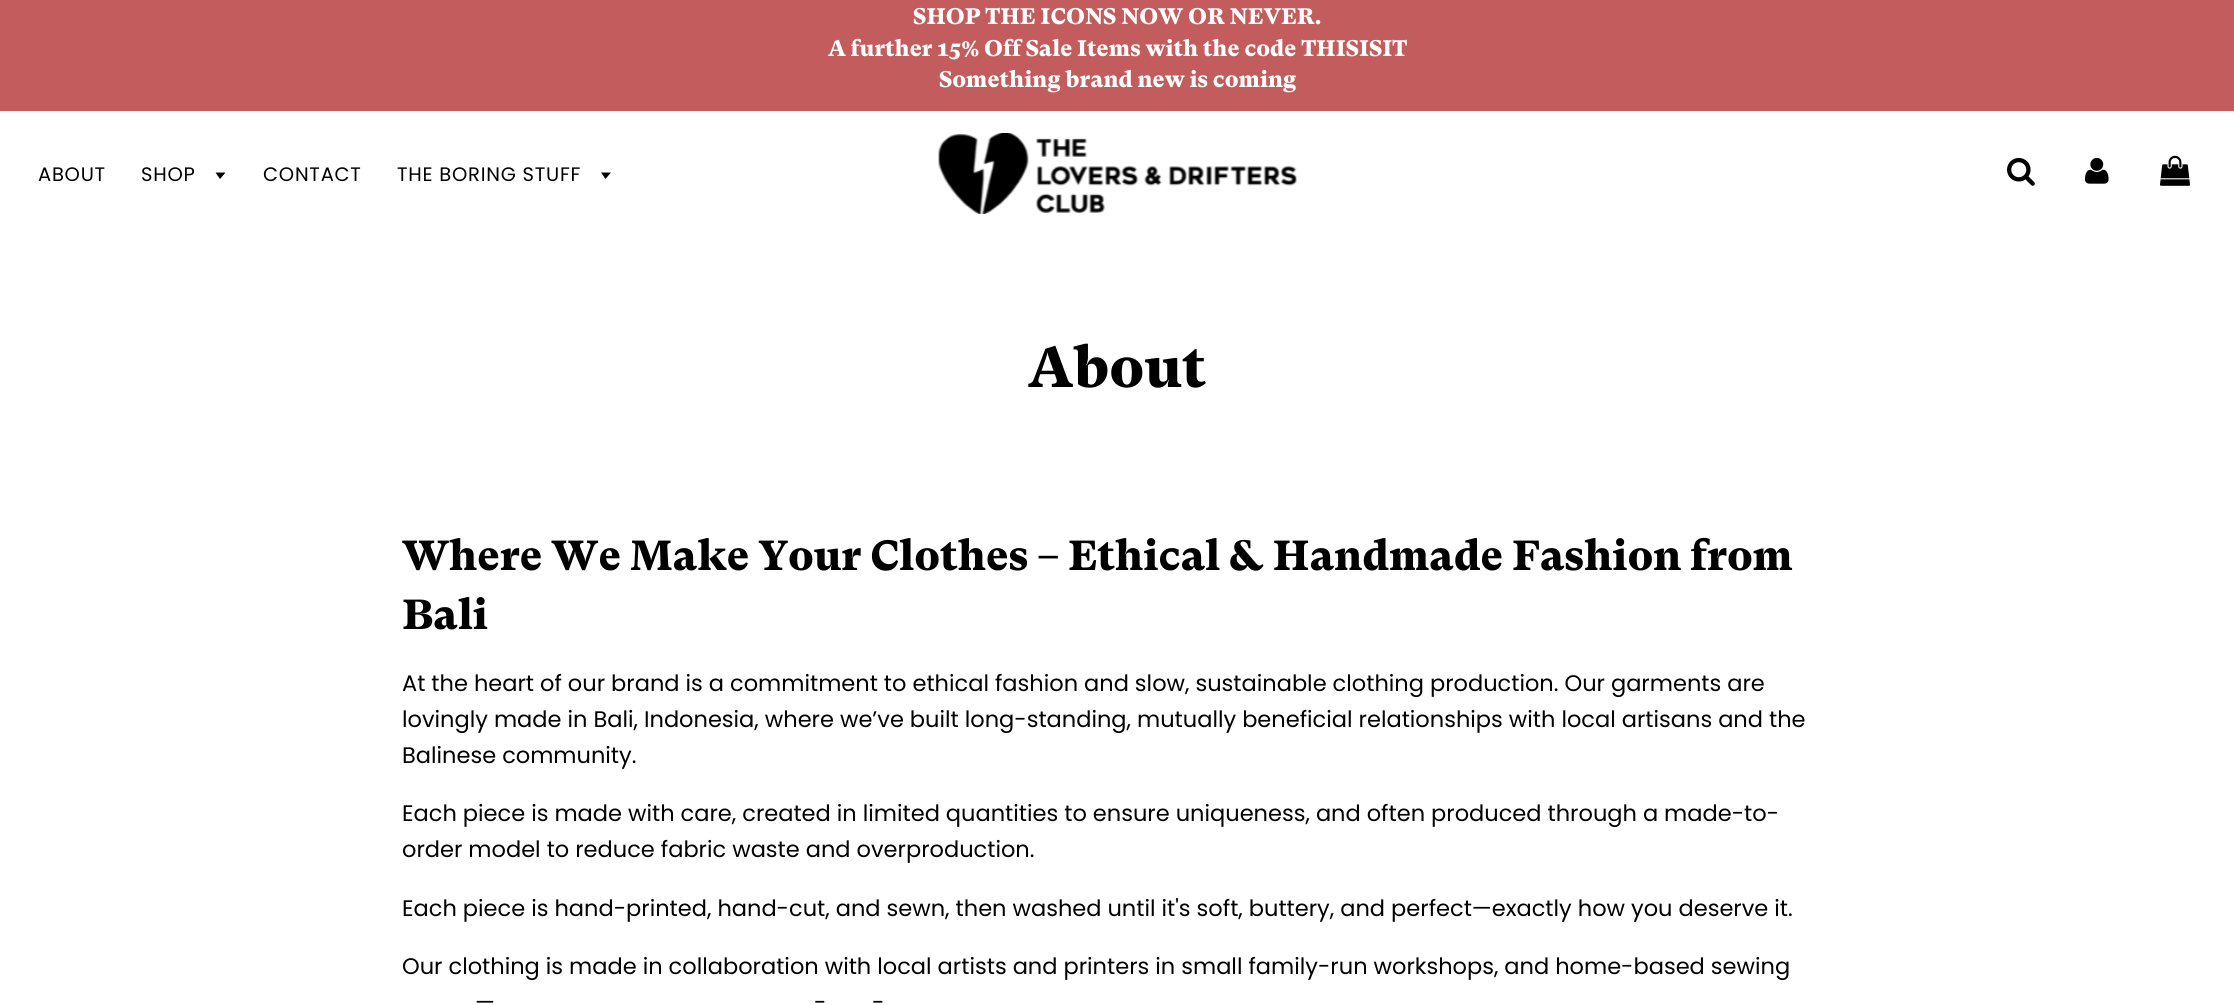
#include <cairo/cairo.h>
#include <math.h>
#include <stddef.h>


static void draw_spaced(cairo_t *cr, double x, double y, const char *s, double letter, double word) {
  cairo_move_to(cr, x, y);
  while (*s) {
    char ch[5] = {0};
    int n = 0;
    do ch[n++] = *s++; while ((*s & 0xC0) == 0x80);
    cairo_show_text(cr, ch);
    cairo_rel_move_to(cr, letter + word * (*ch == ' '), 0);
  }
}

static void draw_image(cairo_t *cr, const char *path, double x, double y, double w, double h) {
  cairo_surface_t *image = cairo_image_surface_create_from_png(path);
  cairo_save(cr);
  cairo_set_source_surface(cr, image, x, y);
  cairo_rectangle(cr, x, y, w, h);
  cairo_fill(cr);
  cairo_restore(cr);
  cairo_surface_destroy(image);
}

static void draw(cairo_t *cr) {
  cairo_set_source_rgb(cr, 1, 1, 1);
  cairo_paint(cr);
  cairo_set_source_rgb(cr, 195 / 255.0, 92 / 255.0, 92 / 255.0);
  cairo_rectangle(cr, 0, 0, 2234, 111);
  cairo_fill(cr);
  cairo_set_source_rgb(cr, 0, 0, 0);
  cairo_new_path(cr);
  cairo_move_to(cr, 215.5, 172.5);
  cairo_line_to(cr, 220, 179);
  cairo_line_to(cr, 225.5, 172.5);
  cairo_close_path(cr);
  cairo_fill(cr);
  cairo_new_path(cr);
  cairo_move_to(cr, 601, 172.5);
  cairo_line_to(cr, 605.5, 179);
  cairo_line_to(cr, 611, 172.5);
  cairo_close_path(cr);
  cairo_fill(cr);
  draw_image(cr, "images/1.png", 938, 133, 359, 81);
  draw_image(cr, "images/2.png", 2007, 157, 28, 29);
  draw_image(cr, "images/3.png", 2085, 157, 24, 27);
  draw_image(cr, "images/4.png", 2160, 155, 30, 31);
  cairo_select_font_face(cr, "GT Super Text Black", CAIRO_FONT_SLANT_NORMAL, CAIRO_FONT_WEIGHT_NORMAL);
  cairo_set_font_size(cr, 22.5);
  cairo_set_source_rgb(cr, 1, 1, 1);
  cairo_move_to(cr, 913, 24);
  cairo_show_text(cr, "SHOP THE ICONS NOW OR NEVER.");
  cairo_move_to(cr, 828, 56);
  cairo_show_text(cr, "A further 15% Off Sale Items with the code THISISIT");
  cairo_move_to(cr, 939, 87);
  cairo_show_text(cr, "Something brand new is coming");
  cairo_select_font_face(cr, "Poppins", CAIRO_FONT_SLANT_NORMAL, CAIRO_FONT_WEIGHT_NORMAL);
  cairo_set_font_size(cr, 19.5);
  cairo_set_source_rgb(cr, 0, 0, 0);
  draw_spaced(cr, 38, 181, "ABOUT", 0.75, 0);
  draw_spaced(cr, 141, 181, "SHOP", 0.75, 0);
  draw_spaced(cr, 263, 181, "CONTACT", 0.75, 0);
  draw_spaced(cr, 397, 181, "THE BORING STUFF", 0.75, 0);
  cairo_select_font_face(cr, "GT Super Text Black", CAIRO_FONT_SLANT_NORMAL, CAIRO_FONT_WEIGHT_NORMAL);
  cairo_set_font_size(cr, 57);
  cairo_move_to(cr, 1028, 387);
  cairo_show_text(cr, "About");
  cairo_set_font_size(cr, 42);
  cairo_move_to(cr, 402, 570);
  cairo_show_text(cr, "Where We Make Your Clothes – Ethical & Handmade Fashion from");
  cairo_move_to(cr, 402, 629);
  cairo_show_text(cr, "Bali");
  cairo_select_font_face(cr, "Poppins", CAIRO_FONT_SLANT_NORMAL, CAIRO_FONT_WEIGHT_NORMAL);
  cairo_set_font_size(cr, 22.5);
  cairo_move_to(cr, 402, 691);
  cairo_show_text(cr, "At the heart of our brand is a commitment to ethical fashion and slow, sustainable clothing production. Our garments are");
  cairo_move_to(cr, 402, 727);
  cairo_show_text(cr, "lovingly made in Bali, Indonesia, where we’ve built long-standing, mutually beneficial relationships with local artisans and the");
  cairo_move_to(cr, 402, 763);
  cairo_show_text(cr, "Balinese community.");
  cairo_move_to(cr, 402, 821);
  cairo_show_text(cr, "Each piece is made with care, created in limited quantities to ensure uniqueness, and often produced through a made-to-");
  cairo_move_to(cr, 402, 857);
  cairo_show_text(cr, "order model to reduce fabric waste and overproduction.");
  cairo_move_to(cr, 402, 916);
  cairo_show_text(cr, "Each piece is hand-printed, hand-cut, and sewn, then washed until it's soft, buttery, and perfect—exactly how you deserve it.");
  cairo_move_to(cr, 402, 974);
  cairo_show_text(cr, "Our clothing is made in collaboration with local artists and printers in small family-run workshops, and home-based sewing");
  cairo_move_to(cr, 475, 1010);
  cairo_show_text(cr, "—");
  cairo_move_to(cr, 814, 1010);
  cairo_show_text(cr, "-");
  cairo_move_to(cr, 872, 1010);
  cairo_show_text(cr, "-");
}

int main(void) {
  cairo_surface_t *surface = cairo_image_surface_create(CAIRO_FORMAT_RGB24, 2234, 1005);
  cairo_t *cr = cairo_create(surface);
  cairo_font_options_t *options = cairo_font_options_create();
  cairo_font_options_set_hint_metrics(options, CAIRO_HINT_METRICS_OFF);
  cairo_font_options_set_hint_style(options, CAIRO_HINT_STYLE_NONE);
  cairo_set_font_options(cr, options);
  cairo_set_miter_limit(cr, 4);
  draw(cr);
  cairo_surface_write_to_png(surface, "out.png");
  cairo_font_options_destroy(options);
  cairo_destroy(cr);
  cairo_surface_destroy(surface);
  return 0;
}
